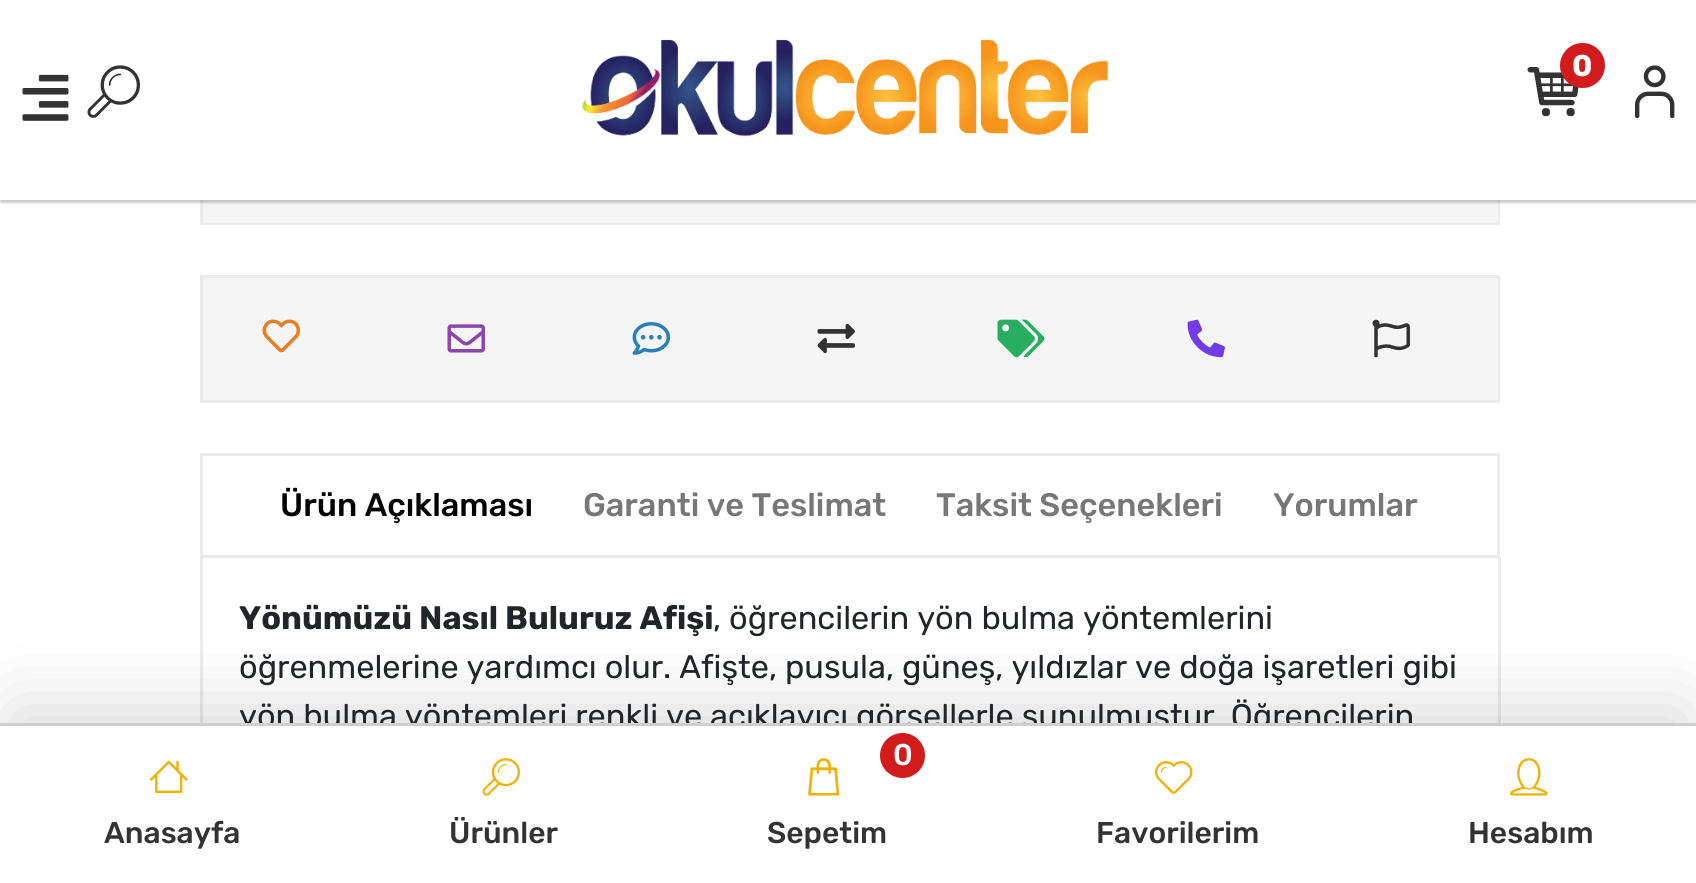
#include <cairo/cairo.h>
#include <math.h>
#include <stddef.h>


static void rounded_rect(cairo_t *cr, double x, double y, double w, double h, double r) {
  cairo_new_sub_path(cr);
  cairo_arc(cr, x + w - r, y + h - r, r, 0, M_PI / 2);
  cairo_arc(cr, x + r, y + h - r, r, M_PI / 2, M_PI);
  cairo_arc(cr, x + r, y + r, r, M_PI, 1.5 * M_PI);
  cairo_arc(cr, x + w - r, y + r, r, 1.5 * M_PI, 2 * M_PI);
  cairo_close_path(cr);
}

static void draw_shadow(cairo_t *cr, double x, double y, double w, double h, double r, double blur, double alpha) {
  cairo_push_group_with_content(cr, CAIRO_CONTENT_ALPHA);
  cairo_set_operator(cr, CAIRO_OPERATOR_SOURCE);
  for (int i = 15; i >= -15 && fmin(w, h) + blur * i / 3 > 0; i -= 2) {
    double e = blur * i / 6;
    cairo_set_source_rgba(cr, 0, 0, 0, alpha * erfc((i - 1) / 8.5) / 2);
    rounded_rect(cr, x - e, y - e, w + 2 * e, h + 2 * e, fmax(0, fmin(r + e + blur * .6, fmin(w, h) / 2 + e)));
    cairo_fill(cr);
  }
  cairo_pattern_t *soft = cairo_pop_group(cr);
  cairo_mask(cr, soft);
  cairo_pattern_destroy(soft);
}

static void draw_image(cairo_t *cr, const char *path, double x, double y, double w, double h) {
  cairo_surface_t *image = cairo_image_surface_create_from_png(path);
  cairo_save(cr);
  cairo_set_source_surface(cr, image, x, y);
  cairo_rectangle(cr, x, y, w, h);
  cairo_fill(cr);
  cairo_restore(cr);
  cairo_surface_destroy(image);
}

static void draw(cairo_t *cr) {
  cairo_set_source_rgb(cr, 1, 1, 1);
  cairo_paint(cr);
  cairo_rectangle(cr, 201.5, -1.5, 1297, 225);
  cairo_set_source_rgb(cr, 235 / 255.0, 235 / 255.0, 235 / 255.0);
  cairo_set_line_width(cr, 3);
  cairo_stroke(cr);
  cairo_set_source_rgb(cr, 245 / 255.0, 245 / 255.0, 245 / 255.0);
  cairo_rectangle(cr, 203, 200, 1295, 23);
  cairo_fill(cr);
  cairo_set_source_rgb(cr, 0, 0, 0);
  draw_shadow(cr, 0, 3, 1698, 200, 0, 1, 0.2);
  cairo_set_source_rgb(cr, 1, 1, 1);
  cairo_rectangle(cr, 0, 0, 1696, 200);
  cairo_fill(cr);
  draw_image(cr, "images/1.png", 22, 74, 47, 47);
  draw_image(cr, "images/2.png", 87, 65, 53, 53);
  draw_image(cr, "images/3.png", 582, 39, 528, 98);
  draw_image(cr, "images/4.png", 1527, 67, 52, 50);
  cairo_set_source_rgb(cr, 210 / 255.0, 28 / 255.0, 28 / 255.0);
  cairo_arc(cr, 1582.5, 65.5, 22.5, 0, 2 * M_PI);
  cairo_fill(cr);
  draw_image(cr, "images/5.png", 1635, 65, 40, 54);
  cairo_rectangle(cr, 201.5, 276.5, 1297, 125);
  cairo_set_source_rgb(cr, 235 / 255.0, 235 / 255.0, 235 / 255.0);
  cairo_stroke(cr);
  cairo_set_source_rgb(cr, 245 / 255.0, 245 / 255.0, 245 / 255.0);
  cairo_rectangle(cr, 203, 278, 1295, 122);
  cairo_fill(cr);
  draw_image(cr, "images/6.png", 262, 319, 39, 34);
  draw_image(cr, "images/7.png", 447, 324, 38, 29);
  draw_image(cr, "images/8.png", 632, 322, 39, 33);
  draw_image(cr, "images/9.png", 817, 323, 38, 31);
  draw_image(cr, "images/10.png", 997, 319, 48, 39);
  draw_image(cr, "images/11.png", 1187, 319, 38, 39);
  draw_image(cr, "images/12.png", 1372, 319, 38, 39);
  cairo_rectangle(cr, 201.5, 454.5, 1297, 102);
  cairo_set_source_rgb(cr, 235 / 255.0, 235 / 255.0, 235 / 255.0);
  cairo_stroke(cr);
  cairo_rectangle(cr, 1498, 558, 3, 165);
  cairo_fill(cr);
  cairo_rectangle(cr, 200, 558, 3, 165);
  cairo_fill(cr);
  cairo_set_source_rgb(cr, 0, 0, 0);
  draw_shadow(cr, 13, 710, 1672, 138, 0, 37.5, 0.15);
  cairo_select_font_face(cr, "Rubik", CAIRO_FONT_SLANT_NORMAL, CAIRO_FONT_WEIGHT_BOLD);
  cairo_set_font_size(cr, 30);
  cairo_set_source_rgb(cr, 1, 1, 1);
  cairo_move_to(cr, 1572, 76);
  cairo_show_text(cr, "0");
  cairo_select_font_face(cr, "Rubik Medium", CAIRO_FONT_SLANT_NORMAL, CAIRO_FONT_WEIGHT_NORMAL);
  cairo_set_font_size(cr, 32.5);
  cairo_set_source_rgb(cr, 0, 0, 0);
  cairo_move_to(cr, 280, 516);
  cairo_show_text(cr, "Ürün Açıklaması");
  cairo_set_source_rgb(cr, 119 / 255.0, 119 / 255.0, 119 / 255.0);
  cairo_move_to(cr, 583, 516);
  cairo_show_text(cr, "Garanti ve Teslimat");
  cairo_move_to(cr, 936, 516);
  cairo_show_text(cr, "Taksit Seçenekleri");
  cairo_move_to(cr, 1273, 516);
  cairo_show_text(cr, "Yorumlar");
  cairo_select_font_face(cr, "Rubik", CAIRO_FONT_SLANT_NORMAL, CAIRO_FONT_WEIGHT_BOLD);
  cairo_set_source_rgb(cr, 33 / 255.0, 37 / 255.0, 41 / 255.0);
  cairo_move_to(cr, 239, 629);
  cairo_show_text(cr, "Yönümüzü Nasıl Buluruz Afişi");
  cairo_select_font_face(cr, "Rubik", CAIRO_FONT_SLANT_NORMAL, CAIRO_FONT_WEIGHT_NORMAL);
  cairo_move_to(cr, 713, 629);
  cairo_show_text(cr, ", öğrencilerin yön bulma yöntemlerini");
  cairo_move_to(cr, 239, 678);
  cairo_show_text(cr, "öğrenmelerine yardımcı olur. Afişte, pusula, güneş, yıldızlar ve doğa işaretleri gibi");
  cairo_move_to(cr, 239, 727);
  cairo_show_text(cr, "yön bulma yöntemleri renkli ve açıklayıcı görsellerle sunulmuştur. Öğrencilerin");
  cairo_set_source_rgb(cr, 1, 1, 1);
  cairo_rectangle(cr, 0, 726, 1696, 157);
  cairo_fill(cr);
  cairo_set_source_rgb(cr, 207 / 255.0, 207 / 255.0, 207 / 255.0);
  cairo_rectangle(cr, 0, 723, 1696, 3);
  cairo_fill(cr);
  draw_image(cr, "images/13.png", 150, 760, 38, 34);
  cairo_select_font_face(cr, "Rubik Medium", CAIRO_FONT_SLANT_NORMAL, CAIRO_FONT_WEIGHT_NORMAL);
  cairo_set_font_size(cr, 30);
  cairo_set_source_rgb(cr, 51 / 255.0, 51 / 255.0, 51 / 255.0);
  cairo_move_to(cr, 104, 843);
  cairo_show_text(cr, "Anasayfa");
  draw_image(cr, "images/14.png", 482, 758, 38, 38);
  cairo_move_to(cr, 449, 843);
  cairo_show_text(cr, "Ürünler");
  cairo_set_source_rgb(cr, 210 / 255.0, 28 / 255.0, 28 / 255.0);
  cairo_new_path(cr);
  cairo_arc(cr, 902.5, 755.5, 22.5, 0, 2 * M_PI);
  cairo_fill(cr);
  cairo_set_source_rgb(cr, 1, 1, 1);
  cairo_move_to(cr, 893, 765);
  cairo_show_text(cr, "0");
  draw_image(cr, "images/15.png", 808, 758, 32, 38);
  cairo_set_source_rgb(cr, 51 / 255.0, 51 / 255.0, 51 / 255.0);
  cairo_move_to(cr, 767, 843);
  cairo_show_text(cr, "Sepetim");
  draw_image(cr, "images/16.png", 1155, 761, 38, 33);
  cairo_move_to(cr, 1096, 843);
  cairo_show_text(cr, "Favorilerim");
  draw_image(cr, "images/17.png", 1510, 758, 38, 38);
  cairo_move_to(cr, 1468, 843);
  cairo_show_text(cr, "Hesabım");
}

int main(void) {
  cairo_surface_t *surface = cairo_image_surface_create(CAIRO_FORMAT_RGB24, 1696, 883);
  cairo_t *cr = cairo_create(surface);
  cairo_font_options_t *options = cairo_font_options_create();
  cairo_font_options_set_hint_metrics(options, CAIRO_HINT_METRICS_OFF);
  cairo_font_options_set_hint_style(options, CAIRO_HINT_STYLE_NONE);
  cairo_set_font_options(cr, options);
  cairo_set_miter_limit(cr, 4);
  draw(cr);
  cairo_surface_write_to_png(surface, "out.png");
  cairo_font_options_destroy(options);
  cairo_destroy(cr);
  cairo_surface_destroy(surface);
  return 0;
}
